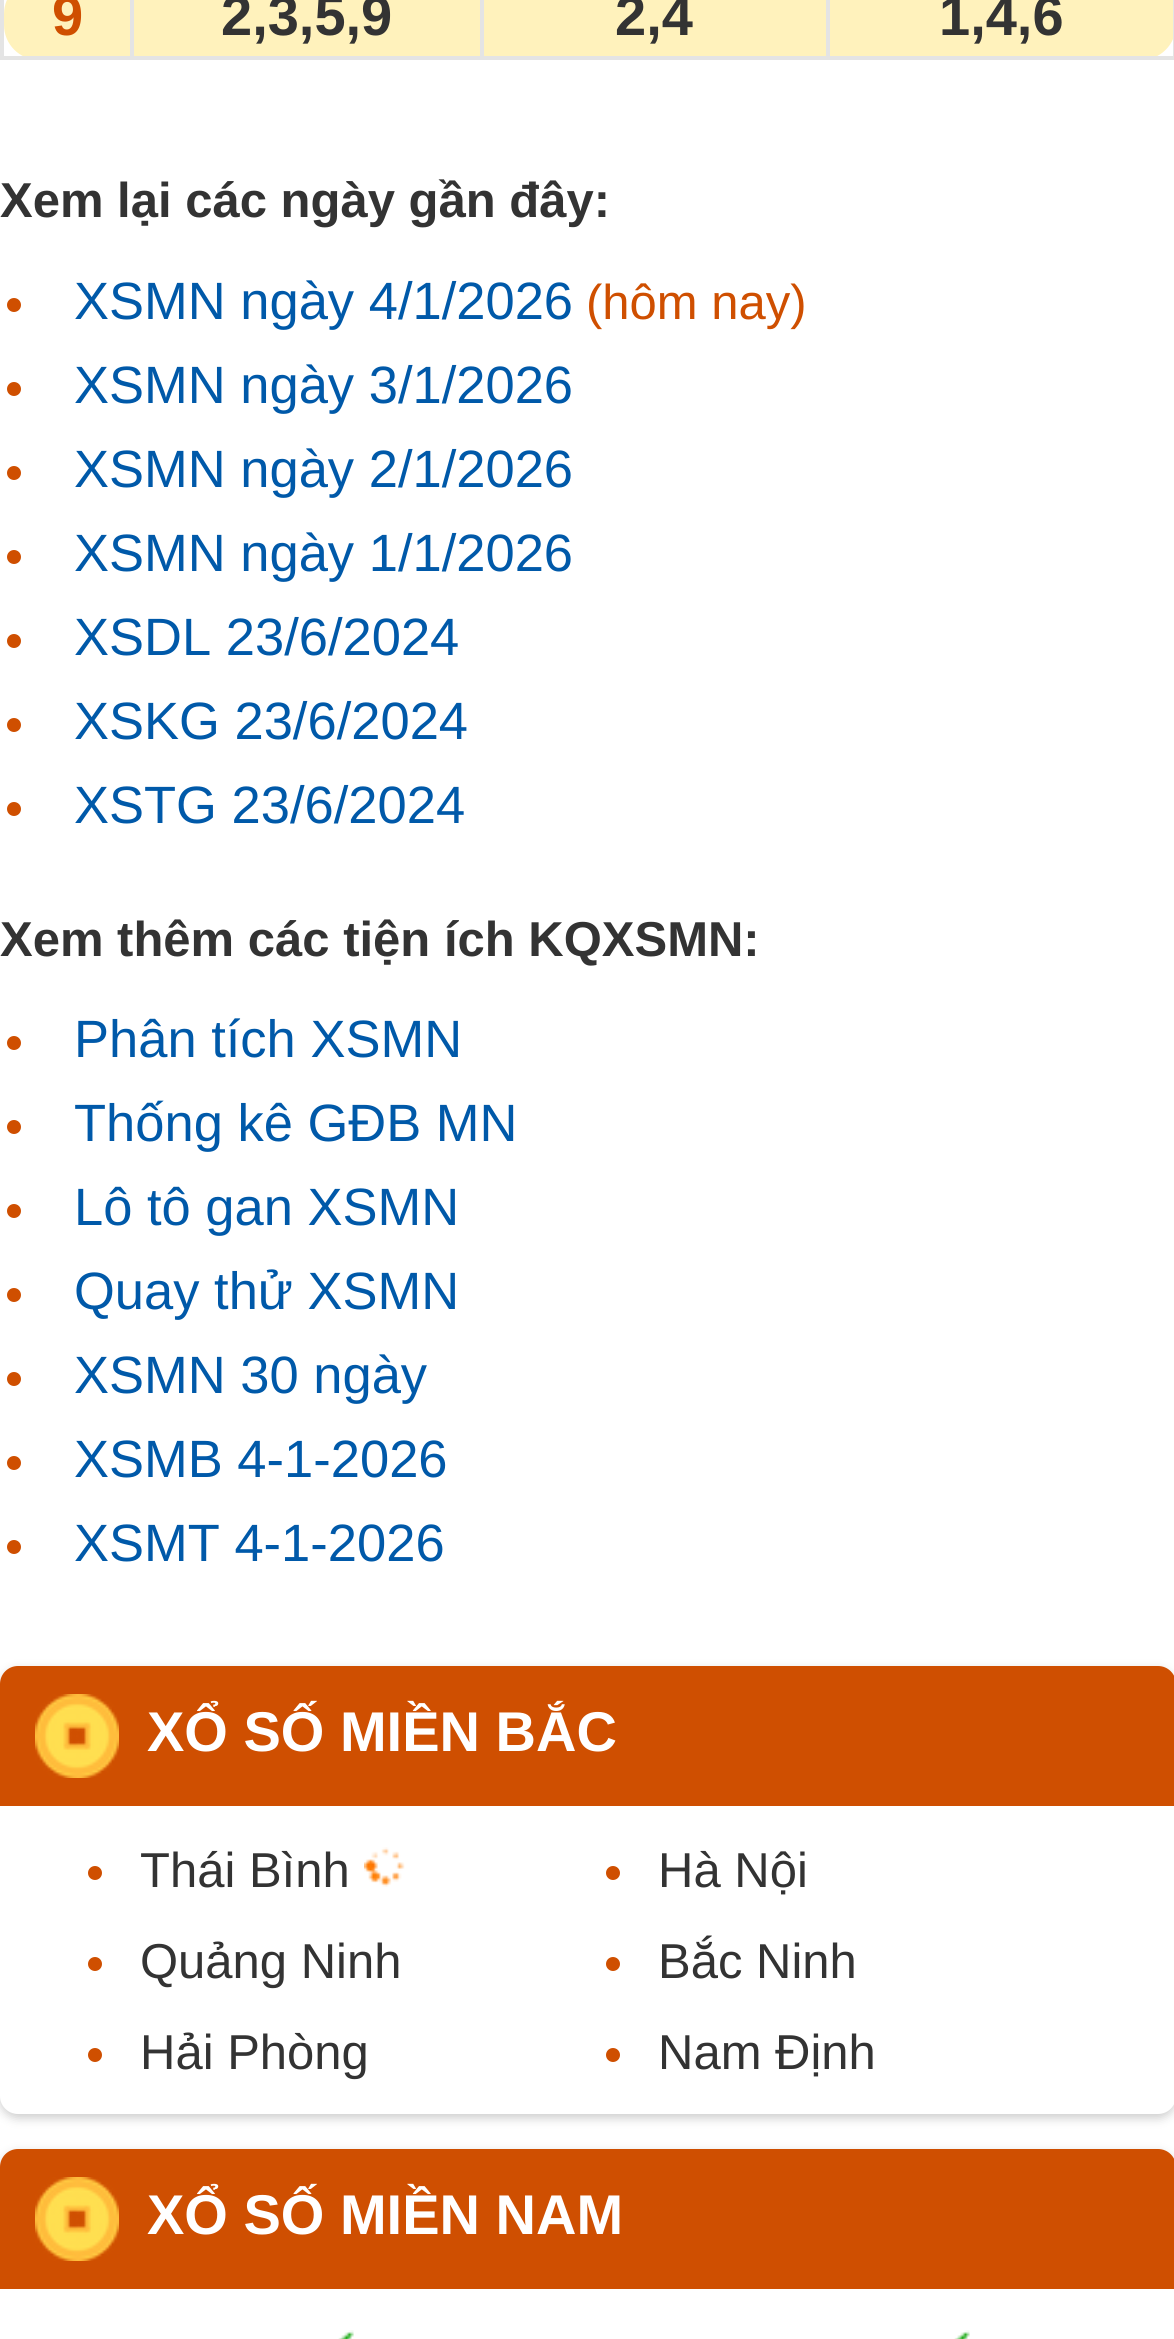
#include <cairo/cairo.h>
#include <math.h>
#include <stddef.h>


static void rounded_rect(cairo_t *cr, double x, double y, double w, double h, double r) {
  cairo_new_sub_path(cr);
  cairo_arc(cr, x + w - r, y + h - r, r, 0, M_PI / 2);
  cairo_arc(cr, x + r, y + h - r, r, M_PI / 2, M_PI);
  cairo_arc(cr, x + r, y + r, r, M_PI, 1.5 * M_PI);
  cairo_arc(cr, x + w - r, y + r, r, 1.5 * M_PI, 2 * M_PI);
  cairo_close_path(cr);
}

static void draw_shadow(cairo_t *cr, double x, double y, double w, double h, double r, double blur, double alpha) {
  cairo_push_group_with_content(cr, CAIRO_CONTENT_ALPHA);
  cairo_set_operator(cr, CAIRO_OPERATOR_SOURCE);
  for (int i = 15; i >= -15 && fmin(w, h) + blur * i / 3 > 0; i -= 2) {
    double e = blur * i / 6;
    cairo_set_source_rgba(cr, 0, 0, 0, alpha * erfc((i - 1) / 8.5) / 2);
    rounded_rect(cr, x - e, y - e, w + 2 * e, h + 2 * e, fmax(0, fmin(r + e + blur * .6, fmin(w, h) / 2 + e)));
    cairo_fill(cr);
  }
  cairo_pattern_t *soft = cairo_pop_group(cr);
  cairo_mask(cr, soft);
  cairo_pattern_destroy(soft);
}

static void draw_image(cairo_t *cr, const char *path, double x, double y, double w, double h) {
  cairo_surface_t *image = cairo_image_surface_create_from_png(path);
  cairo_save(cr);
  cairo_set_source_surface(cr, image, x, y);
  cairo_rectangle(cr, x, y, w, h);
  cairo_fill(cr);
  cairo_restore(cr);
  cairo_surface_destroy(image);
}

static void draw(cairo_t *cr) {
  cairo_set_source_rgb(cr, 1, 1, 1);
  cairo_paint(cr);
  cairo_set_source_rgb(cr, 1, 242 / 255.0, 188 / 255.0);
  rounded_rect(cr, 4, -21, 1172, 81, 35);
  cairo_fill(cr);
  cairo_set_source_rgb(cr, 228 / 255.0, 228 / 255.0, 228 / 255.0);
  cairo_rectangle(cr, 1173, 0, 1, 60);
  cairo_fill(cr);
  cairo_rectangle(cr, 826, 56, 348, 4);
  cairo_fill(cr);
  cairo_rectangle(cr, 826, 0, 4, 60);
  cairo_fill(cr);
  cairo_rectangle(cr, 480, 56, 350, 4);
  cairo_fill(cr);
  cairo_rectangle(cr, 480, 0, 4, 60);
  cairo_fill(cr);
  cairo_rectangle(cr, 130, 56, 353, 4);
  cairo_fill(cr);
  cairo_rectangle(cr, 130, 0, 4, 60);
  cairo_fill(cr);
  cairo_rectangle(cr, 0, 56, 133, 4);
  cairo_fill(cr);
  cairo_rectangle(cr, 0, 0, 4, 60);
  cairo_fill(cr);
  cairo_set_source_rgb(cr, 207 / 255.0, 79 / 255.0, 0);
  cairo_arc(cr, 14, 305, 7, 0, 2 * M_PI);
  cairo_fill(cr);
  cairo_arc(cr, 14, 389, 7, 0, 2 * M_PI);
  cairo_fill(cr);
  cairo_arc(cr, 14, 473, 7, 0, 2 * M_PI);
  cairo_fill(cr);
  cairo_arc(cr, 14, 557, 7, 0, 2 * M_PI);
  cairo_fill(cr);
  cairo_arc(cr, 14, 641, 7, 0, 2 * M_PI);
  cairo_fill(cr);
  cairo_arc(cr, 14, 725, 7, 0, 2 * M_PI);
  cairo_fill(cr);
  cairo_arc(cr, 14, 809, 7, 0, 2 * M_PI);
  cairo_fill(cr);
  cairo_arc(cr, 14, 1043, 7, 0, 2 * M_PI);
  cairo_fill(cr);
  cairo_arc(cr, 14, 1127, 7, 0, 2 * M_PI);
  cairo_fill(cr);
  cairo_arc(cr, 14, 1211, 7, 0, 2 * M_PI);
  cairo_fill(cr);
  cairo_arc(cr, 14, 1295, 7, 0, 2 * M_PI);
  cairo_fill(cr);
  cairo_arc(cr, 14, 1379, 7, 0, 2 * M_PI);
  cairo_fill(cr);
  cairo_arc(cr, 14, 1463, 7, 0, 2 * M_PI);
  cairo_fill(cr);
  cairo_arc(cr, 14, 1547, 7, 0, 2 * M_PI);
  cairo_fill(cr);
  cairo_set_source_rgb(cr, 204 / 255.0, 204 / 255.0, 204 / 255.0);
  draw_shadow(cr, 0, 1670, 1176, 448, 18, 5, 1);
  cairo_set_source_rgb(cr, 1, 1, 1);
  rounded_rect(cr, 0, 1666, 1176, 448, 18);
  cairo_fill(cr);
  cairo_set_source_rgb(cr, 207 / 255.0, 79 / 255.0, 1 / 255.0);
  cairo_new_path(cr);
  cairo_move_to(cr, 18, 1666);
  cairo_line_to(cr, 1158, 1666);
  cairo_curve_to(cr, 1168, 1666, 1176, 1674, 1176, 1684);
  cairo_line_to(cr, 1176, 1806);
  cairo_line_to(cr, 0, 1806);
  cairo_line_to(cr, 0, 1684);
  cairo_curve_to(cr, 0, 1674, 8, 1666, 18, 1666);
  cairo_close_path(cr);
  cairo_fill(cr);
  draw_image(cr, "images/1.png", 35, 1694, 84, 84);
  cairo_set_source_rgb(cr, 207 / 255.0, 79 / 255.0, 0);
  cairo_arc(cr, 95, 1873, 7, 0, 2 * M_PI);
  cairo_fill(cr);
  draw_image(cr, "images/2.png", 364, 1847, 41, 40);
  cairo_arc(cr, 613, 1873, 7, 0, 2 * M_PI);
  cairo_fill(cr);
  cairo_arc(cr, 95, 1964, 7, 0, 2 * M_PI);
  cairo_fill(cr);
  cairo_arc(cr, 613, 1964, 7, 0, 2 * M_PI);
  cairo_fill(cr);
  cairo_arc(cr, 95, 2055, 7, 0, 2 * M_PI);
  cairo_fill(cr);
  cairo_arc(cr, 613, 2055, 7, 0, 2 * M_PI);
  cairo_fill(cr);
  cairo_set_source_rgb(cr, 204 / 255.0, 204 / 255.0, 204 / 255.0);
  draw_shadow(cr, 0, 2153, 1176, 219, 18, 5, 1);
  cairo_set_source_rgb(cr, 1, 1, 1);
  rounded_rect(cr, 0, 2149, 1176, 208, 18);
  cairo_fill(cr);
  cairo_set_source_rgb(cr, 207 / 255.0, 79 / 255.0, 1 / 255.0);
  cairo_new_path(cr);
  cairo_move_to(cr, 18, 2149);
  cairo_line_to(cr, 1158, 2149);
  cairo_curve_to(cr, 1168, 2149, 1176, 2157, 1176, 2167);
  cairo_line_to(cr, 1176, 2289);
  cairo_line_to(cr, 0, 2289);
  cairo_line_to(cr, 0, 2167);
  cairo_curve_to(cr, 0, 2157, 8, 2149, 18, 2149);
  cairo_close_path(cr);
  cairo_fill(cr);
  draw_image(cr, "images/1.png", 35, 2177, 84, 84);
  draw_image(cr, "images/3.png", 338, 2330, 16, 9);
  draw_image(cr, "images/3.png", 954, 2330, 16, 9);
  cairo_select_font_face(cr, "Liberation Sans", CAIRO_FONT_SLANT_NORMAL, CAIRO_FONT_WEIGHT_BOLD);
  cairo_set_font_size(cr, 56);
  cairo_set_source_rgb(cr, 207 / 255.0, 79 / 255.0, 0);
  cairo_move_to(cr, 52, 35);
  cairo_show_text(cr, "9");
  cairo_set_source_rgb(cr, 51 / 255.0, 51 / 255.0, 51 / 255.0);
  cairo_move_to(cr, 221, 35);
  cairo_show_text(cr, "2,3,5,9");
  cairo_move_to(cr, 615, 35);
  cairo_show_text(cr, "2,4");
  cairo_move_to(cr, 939, 35);
  cairo_show_text(cr, "1,4,6");
  cairo_set_font_size(cr, 49);
  cairo_move_to(cr, 0, 217);
  cairo_show_text(cr, "Xem lại các ngày gần đây:");
  cairo_select_font_face(cr, "Liberation Sans", CAIRO_FONT_SLANT_NORMAL, CAIRO_FONT_WEIGHT_NORMAL);
  cairo_set_font_size(cr, 52.5);
  cairo_set_source_rgb(cr, 0, 89 / 255.0, 169 / 255.0);
  cairo_move_to(cr, 74, 319);
  cairo_show_text(cr, "XSMN ngày 4/1/2026");
  cairo_set_font_size(cr, 49);
  cairo_set_source_rgb(cr, 207 / 255.0, 79 / 255.0, 0);
  cairo_move_to(cr, 586, 319);
  cairo_show_text(cr, "(hôm nay)");
  cairo_set_font_size(cr, 52.5);
  cairo_set_source_rgb(cr, 0, 89 / 255.0, 169 / 255.0);
  cairo_move_to(cr, 74, 403);
  cairo_show_text(cr, "XSMN ngày 3/1/2026");
  cairo_move_to(cr, 74, 487);
  cairo_show_text(cr, "XSMN ngày 2/1/2026");
  cairo_move_to(cr, 74, 571);
  cairo_show_text(cr, "XSMN ngày 1/1/2026");
  cairo_move_to(cr, 74, 655);
  cairo_show_text(cr, "XSDL 23/6/2024");
  cairo_move_to(cr, 74, 739);
  cairo_show_text(cr, "XSKG 23/6/2024");
  cairo_move_to(cr, 74, 823);
  cairo_show_text(cr, "XSTG 23/6/2024");
  cairo_select_font_face(cr, "Liberation Sans", CAIRO_FONT_SLANT_NORMAL, CAIRO_FONT_WEIGHT_BOLD);
  cairo_set_font_size(cr, 49);
  cairo_set_source_rgb(cr, 51 / 255.0, 51 / 255.0, 51 / 255.0);
  cairo_move_to(cr, 0, 956);
  cairo_show_text(cr, "Xem thêm các tiện ích KQXSMN:");
  cairo_select_font_face(cr, "Liberation Sans", CAIRO_FONT_SLANT_NORMAL, CAIRO_FONT_WEIGHT_NORMAL);
  cairo_set_font_size(cr, 52.5);
  cairo_set_source_rgb(cr, 0, 89 / 255.0, 169 / 255.0);
  cairo_move_to(cr, 74, 1057);
  cairo_show_text(cr, "Phân tích XSMN");
  cairo_move_to(cr, 74, 1141);
  cairo_show_text(cr, "Thống kê GĐB MN");
  cairo_move_to(cr, 74, 1225);
  cairo_show_text(cr, "Lô tô gan XSMN");
  cairo_move_to(cr, 74, 1309);
  cairo_show_text(cr, "Quay thử XSMN");
  cairo_move_to(cr, 74, 1393);
  cairo_show_text(cr, "XSMN 30 ngày");
  cairo_move_to(cr, 74, 1477);
  cairo_show_text(cr, "XSMB 4-1-2026");
  cairo_move_to(cr, 74, 1561);
  cairo_show_text(cr, "XSMT 4-1-2026");
  cairo_select_font_face(cr, "Liberation Sans", CAIRO_FONT_SLANT_NORMAL, CAIRO_FONT_WEIGHT_BOLD);
  cairo_set_font_size(cr, 56);
  cairo_set_source_rgb(cr, 1, 1, 1);
  cairo_move_to(cr, 147, 1751);
  cairo_show_text(cr, "XỔ SỐ MIỀN BẮC");
  cairo_select_font_face(cr, "Liberation Sans", CAIRO_FONT_SLANT_NORMAL, CAIRO_FONT_WEIGHT_NORMAL);
  cairo_set_font_size(cr, 49);
  cairo_set_source_rgb(cr, 51 / 255.0, 51 / 255.0, 51 / 255.0);
  cairo_move_to(cr, 140, 1887);
  cairo_show_text(cr, "Thái Bình");
  cairo_move_to(cr, 658, 1887);
  cairo_show_text(cr, "Hà Nội");
  cairo_move_to(cr, 140, 1978);
  cairo_show_text(cr, "Quảng Ninh");
  cairo_move_to(cr, 658, 1978);
  cairo_show_text(cr, "Bắc Ninh");
  cairo_move_to(cr, 140, 2069);
  cairo_show_text(cr, "Hải Phòng");
  cairo_move_to(cr, 658, 2069);
  cairo_show_text(cr, "Nam Định");
  cairo_select_font_face(cr, "Liberation Sans", CAIRO_FONT_SLANT_NORMAL, CAIRO_FONT_WEIGHT_BOLD);
  cairo_set_font_size(cr, 56);
  cairo_set_source_rgb(cr, 1, 1, 1);
  cairo_move_to(cr, 147, 2234);
  cairo_show_text(cr, "XỔ SỐ MIỀN NAM");
}

int main(void) {
  cairo_surface_t *surface = cairo_image_surface_create(CAIRO_FORMAT_RGB24, 1174, 2339);
  cairo_t *cr = cairo_create(surface);
  cairo_font_options_t *options = cairo_font_options_create();
  cairo_font_options_set_hint_metrics(options, CAIRO_HINT_METRICS_OFF);
  cairo_font_options_set_hint_style(options, CAIRO_HINT_STYLE_NONE);
  cairo_set_font_options(cr, options);
  cairo_set_miter_limit(cr, 4);
  draw(cr);
  cairo_surface_write_to_png(surface, "out.png");
  cairo_font_options_destroy(options);
  cairo_destroy(cr);
  cairo_surface_destroy(surface);
  return 0;
}
